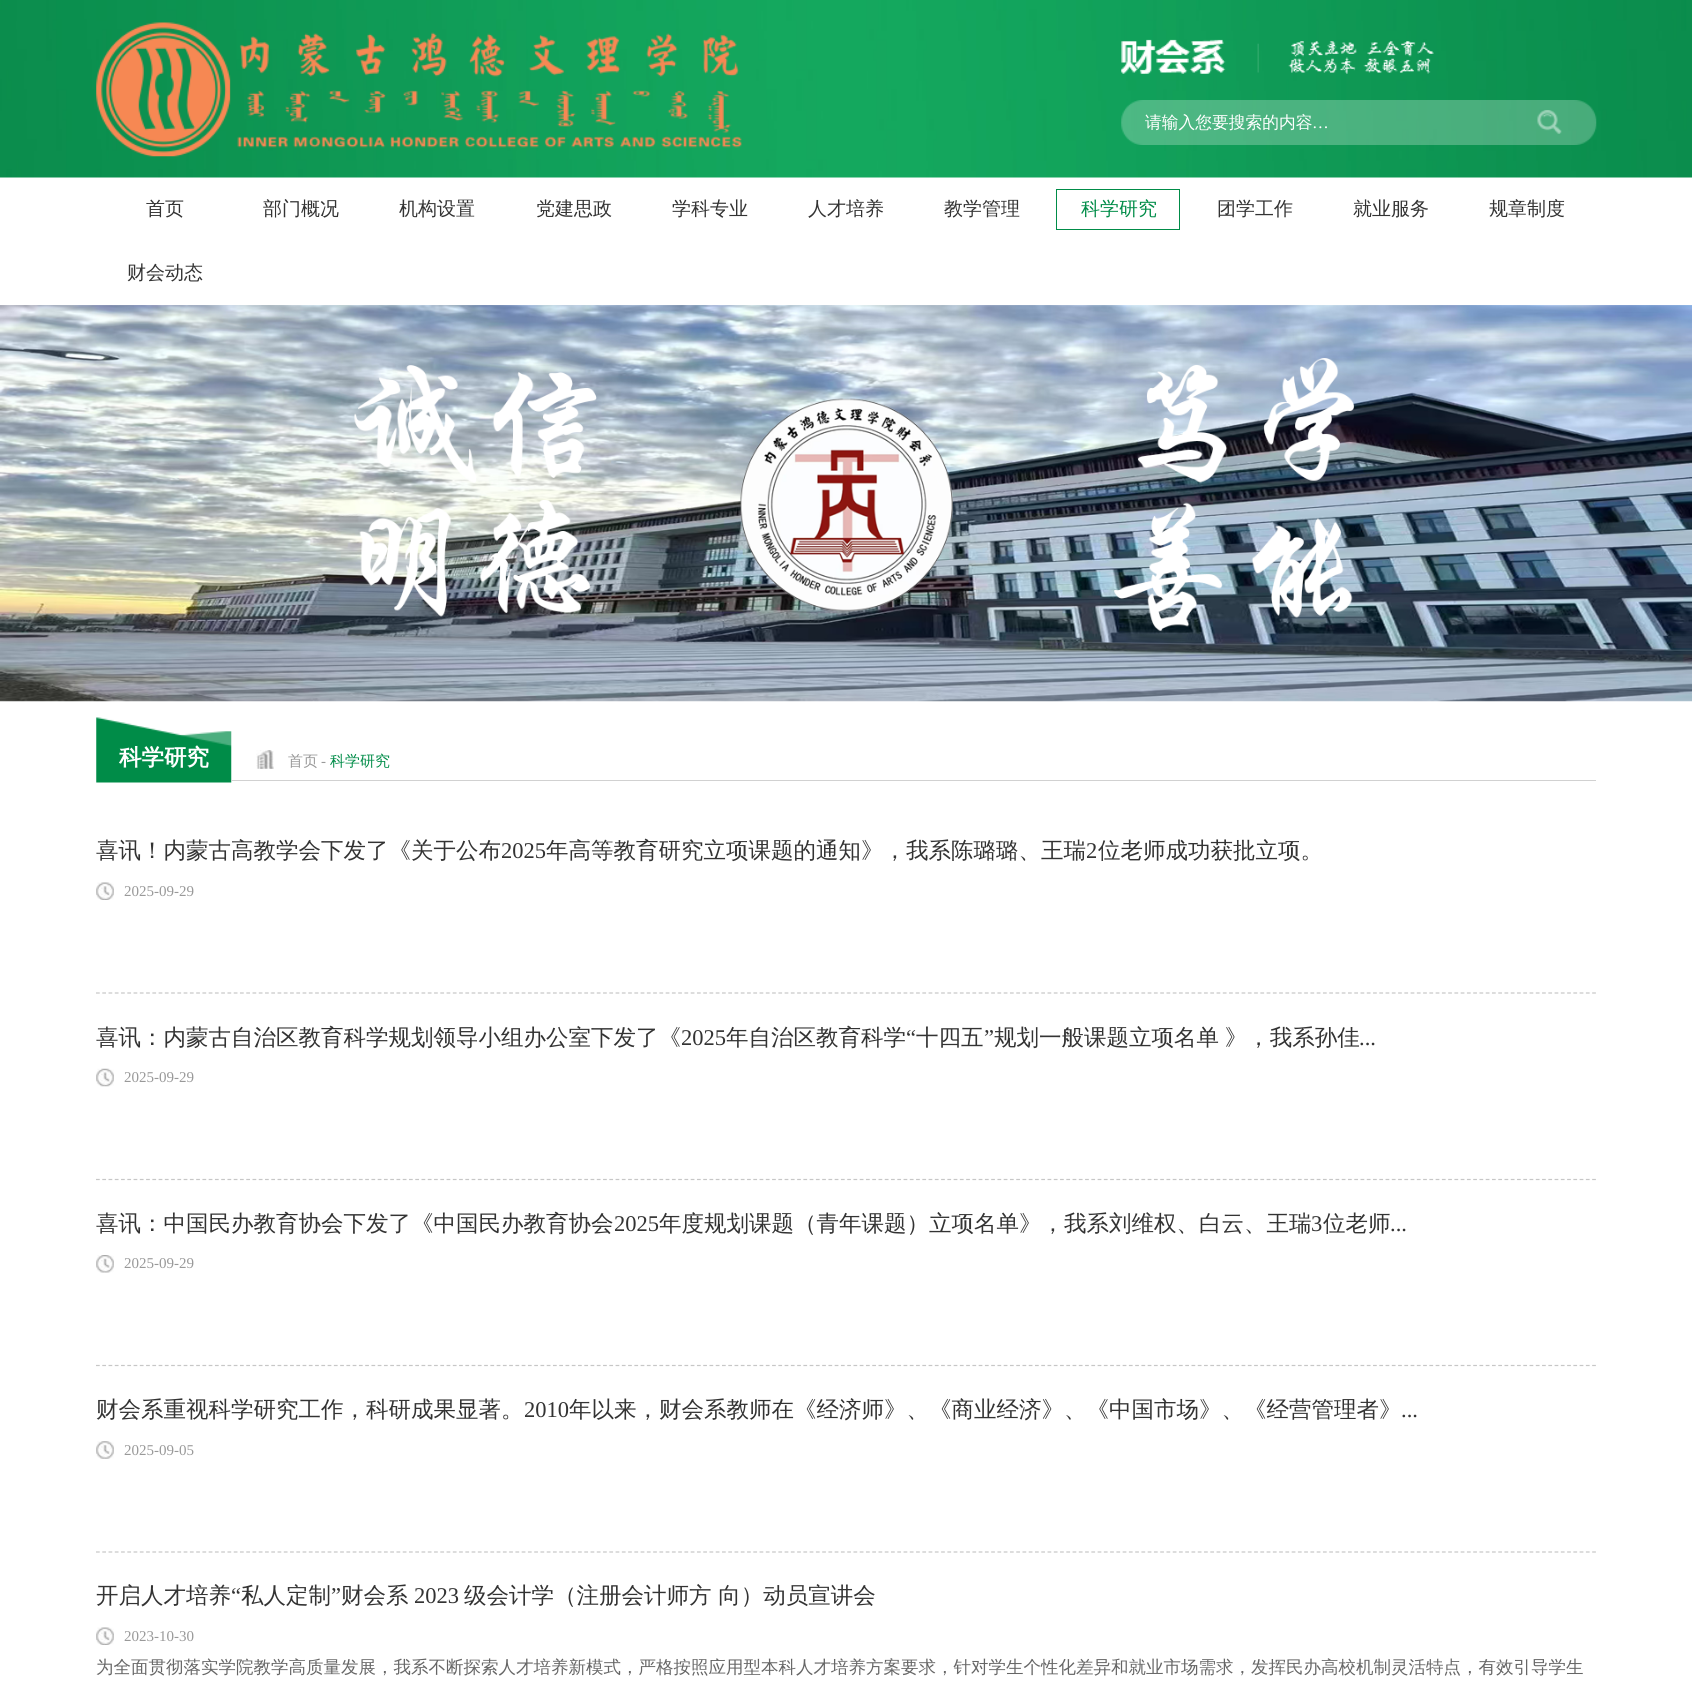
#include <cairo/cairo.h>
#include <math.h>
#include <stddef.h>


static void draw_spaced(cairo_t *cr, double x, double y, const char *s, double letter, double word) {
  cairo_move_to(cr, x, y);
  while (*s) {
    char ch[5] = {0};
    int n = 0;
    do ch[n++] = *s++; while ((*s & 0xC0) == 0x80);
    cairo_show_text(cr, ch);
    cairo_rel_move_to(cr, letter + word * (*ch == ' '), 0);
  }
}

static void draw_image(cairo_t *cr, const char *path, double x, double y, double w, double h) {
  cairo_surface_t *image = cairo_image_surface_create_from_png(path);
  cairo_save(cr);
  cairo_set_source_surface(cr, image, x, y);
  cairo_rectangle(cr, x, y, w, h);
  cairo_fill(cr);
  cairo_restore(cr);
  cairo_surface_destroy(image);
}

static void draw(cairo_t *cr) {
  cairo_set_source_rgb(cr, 1, 1, 1);
  cairo_paint(cr);
  draw_image(cr, "images/1.png", 0, 0, 1692, 178);
  draw_image(cr, "images/2.png", 96, 22, 646, 135);
  draw_image(cr, "images/3.png", 1121, 39, 313, 35);
  draw_image(cr, "images/4.png", 1121, 100, 476, 45);
  draw_image(cr, "images/5.png", 1537, 110, 25, 24);
  cairo_rectangle(cr, 1056.5, 189.5, 123, 40);
  cairo_set_source_rgb(cr, 0, 140 / 255.0, 72 / 255.0);
  cairo_set_line_width(cr, 1);
  cairo_stroke(cr);
  draw_image(cr, "images/6.png", 0, 305, 1692, 397);
  draw_image(cr, "images/7.png", 96, 717, 136, 66);
  draw_image(cr, "images/8.png", 256, 750, 18, 19);
  cairo_set_source_rgb(cr, 209 / 255.0, 209 / 255.0, 209 / 255.0);
  cairo_rectangle(cr, 231, 780, 1365, 1);
  cairo_fill(cr);
  cairo_new_path(cr);
  cairo_move_to(cr, 96, 993);
  cairo_line_to(cr, 1596, 993);
  cairo_set_source_rgb(cr, 199 / 255.0, 199 / 255.0, 199 / 255.0);
  cairo_set_line_width(cr, 1.2);
  cairo_set_dash(cr, (double[]){3.75, 2.51}, 2, 0);
  cairo_stroke(cr);
  draw_image(cr, "images/9.png", 96, 882, 18, 18);
  cairo_new_path(cr);
  cairo_move_to(cr, 96, 1179.5);
  cairo_line_to(cr, 1596, 1179.5);
  cairo_stroke(cr);
  draw_image(cr, "images/10.png", 96, 1068, 18, 19);
  cairo_new_path(cr);
  cairo_move_to(cr, 96, 1365.5);
  cairo_line_to(cr, 1596, 1365.5);
  cairo_stroke(cr);
  draw_image(cr, "images/11.png", 96, 1255, 18, 18);
  cairo_new_path(cr);
  cairo_move_to(cr, 96, 1552);
  cairo_line_to(cr, 1596, 1552);
  cairo_stroke(cr);
  draw_image(cr, "images/12.png", 96, 1441, 18, 18);
  draw_image(cr, "images/9.png", 96, 1627, 18, 18);
  cairo_select_font_face(cr, "WenQuanYi Zen Hei Medium", CAIRO_FONT_SLANT_NORMAL, CAIRO_FONT_WEIGHT_NORMAL);
  cairo_set_font_size(cr, 16.75);
  cairo_set_source_rgb(cr, 1, 1, 1);
  cairo_move_to(cr, 1145, 128);
  cairo_show_text(cr, "请输入您要搜索的内容");
  cairo_select_font_face(cr, "Liberation Serif", CAIRO_FONT_SLANT_NORMAL, CAIRO_FONT_WEIGHT_NORMAL);
  cairo_move_to(cr, 1312, 128);
  cairo_show_text(cr, "…");
  cairo_select_font_face(cr, "WenQuanYi Zen Hei Medium", CAIRO_FONT_SLANT_NORMAL, CAIRO_FONT_WEIGHT_NORMAL);
  cairo_set_font_size(cr, 19);
  cairo_set_source_rgb(cr, 51 / 255.0, 51 / 255.0, 51 / 255.0);
  cairo_move_to(cr, 146, 215);
  cairo_show_text(cr, "首页");
  cairo_move_to(cr, 263, 215);
  cairo_show_text(cr, "部门概况");
  cairo_move_to(cr, 399, 215);
  cairo_show_text(cr, "机构设置");
  cairo_move_to(cr, 536, 215);
  cairo_show_text(cr, "党建思政");
  cairo_move_to(cr, 672, 215);
  cairo_show_text(cr, "学科专业");
  cairo_move_to(cr, 808, 215);
  cairo_show_text(cr, "人才培养");
  cairo_move_to(cr, 944, 215);
  cairo_show_text(cr, "教学管理");
  cairo_set_source_rgb(cr, 0, 140 / 255.0, 72 / 255.0);
  cairo_move_to(cr, 1081, 215);
  cairo_show_text(cr, "科学研究");
  cairo_set_source_rgb(cr, 51 / 255.0, 51 / 255.0, 51 / 255.0);
  cairo_move_to(cr, 1217, 215);
  cairo_show_text(cr, "团学工作");
  cairo_move_to(cr, 1353, 215);
  cairo_show_text(cr, "就业服务");
  cairo_move_to(cr, 1489, 215);
  cairo_show_text(cr, "规章制度");
  cairo_move_to(cr, 127, 279);
  cairo_show_text(cr, "财会动态");
  cairo_select_font_face(cr, "WenQuanYi Zen Hei", CAIRO_FONT_SLANT_NORMAL, CAIRO_FONT_WEIGHT_BOLD);
  cairo_set_font_size(cr, 22.5);
  cairo_set_source_rgb(cr, 1, 1, 1);
  cairo_move_to(cr, 119, 765);
  cairo_show_text(cr, "科学研究");
  cairo_select_font_face(cr, "WenQuanYi Zen Hei Medium", CAIRO_FONT_SLANT_NORMAL, CAIRO_FONT_WEIGHT_NORMAL);
  cairo_set_font_size(cr, 15);
  cairo_set_source_rgb(cr, 153 / 255.0, 153 / 255.0, 153 / 255.0);
  cairo_move_to(cr, 288, 766);
  cairo_show_text(cr, "首页");
  cairo_select_font_face(cr, "Liberation Serif", CAIRO_FONT_SLANT_NORMAL, CAIRO_FONT_WEIGHT_NORMAL);
  cairo_move_to(cr, 321, 766);
  cairo_show_text(cr, "-");
  cairo_select_font_face(cr, "WenQuanYi Zen Hei Medium", CAIRO_FONT_SLANT_NORMAL, CAIRO_FONT_WEIGHT_NORMAL);
  cairo_set_source_rgb(cr, 0, 140 / 255.0, 72 / 255.0);
  cairo_move_to(cr, 330, 766);
  cairo_show_text(cr, "科学研究");
  cairo_set_font_size(cr, 22.5);
  cairo_set_source_rgb(cr, 51 / 255.0, 51 / 255.0, 51 / 255.0);
  cairo_move_to(cr, 96, 858);
  cairo_show_text(cr, "喜讯！内蒙古高教学会下发了《关于公布");
  cairo_select_font_face(cr, "Liberation Serif", CAIRO_FONT_SLANT_NORMAL, CAIRO_FONT_WEIGHT_NORMAL);
  cairo_move_to(cr, 501, 858);
  cairo_show_text(cr, "2025");
  cairo_select_font_face(cr, "WenQuanYi Zen Hei Medium", CAIRO_FONT_SLANT_NORMAL, CAIRO_FONT_WEIGHT_NORMAL);
  cairo_move_to(cr, 546, 858);
  cairo_show_text(cr, "年高等教育研究立项课题的通知》，我系陈璐璐、王瑞");
  cairo_select_font_face(cr, "Liberation Serif", CAIRO_FONT_SLANT_NORMAL, CAIRO_FONT_WEIGHT_NORMAL);
  cairo_move_to(cr, 1086, 858);
  cairo_show_text(cr, "2");
  cairo_select_font_face(cr, "WenQuanYi Zen Hei Medium", CAIRO_FONT_SLANT_NORMAL, CAIRO_FONT_WEIGHT_NORMAL);
  cairo_move_to(cr, 1098, 858);
  cairo_show_text(cr, "位老师成功获批立项。");
  cairo_select_font_face(cr, "Liberation Serif", CAIRO_FONT_SLANT_NORMAL, CAIRO_FONT_WEIGHT_NORMAL);
  cairo_set_font_size(cr, 15);
  cairo_set_source_rgb(cr, 153 / 255.0, 153 / 255.0, 153 / 255.0);
  cairo_move_to(cr, 124, 896);
  cairo_show_text(cr, "2025-09-29");
  cairo_select_font_face(cr, "WenQuanYi Zen Hei Medium", CAIRO_FONT_SLANT_NORMAL, CAIRO_FONT_WEIGHT_NORMAL);
  cairo_set_font_size(cr, 22.5);
  cairo_set_source_rgb(cr, 51 / 255.0, 51 / 255.0, 51 / 255.0);
  cairo_move_to(cr, 96, 1045);
  cairo_show_text(cr, "喜讯：内蒙古自治区教育科学规划领导小组办公室下发了《");
  cairo_select_font_face(cr, "Liberation Serif", CAIRO_FONT_SLANT_NORMAL, CAIRO_FONT_WEIGHT_NORMAL);
  cairo_move_to(cr, 681, 1045);
  cairo_show_text(cr, "2025");
  cairo_select_font_face(cr, "WenQuanYi Zen Hei Medium", CAIRO_FONT_SLANT_NORMAL, CAIRO_FONT_WEIGHT_NORMAL);
  cairo_move_to(cr, 726, 1045);
  cairo_show_text(cr, "年自治区教育科学");
  cairo_select_font_face(cr, "Liberation Serif", CAIRO_FONT_SLANT_NORMAL, CAIRO_FONT_WEIGHT_NORMAL);
  cairo_move_to(cr, 906, 1045);
  cairo_show_text(cr, "“");
  cairo_select_font_face(cr, "WenQuanYi Zen Hei Medium", CAIRO_FONT_SLANT_NORMAL, CAIRO_FONT_WEIGHT_NORMAL);
  cairo_move_to(cr, 916, 1045);
  cairo_show_text(cr, "十四五");
  cairo_select_font_face(cr, "Liberation Serif", CAIRO_FONT_SLANT_NORMAL, CAIRO_FONT_WEIGHT_NORMAL);
  cairo_move_to(cr, 984, 1045);
  cairo_show_text(cr, "”");
  cairo_select_font_face(cr, "WenQuanYi Zen Hei Medium", CAIRO_FONT_SLANT_NORMAL, CAIRO_FONT_WEIGHT_NORMAL);
  draw_spaced(cr, 994, 1045, "规划一般课题立项名单 》，我系孙佳", 0, -1);
  cairo_select_font_face(cr, "Liberation Serif", CAIRO_FONT_SLANT_NORMAL, CAIRO_FONT_WEIGHT_NORMAL);
  cairo_move_to(cr, 1359, 1045);
  cairo_show_text(cr, "...");
  cairo_set_font_size(cr, 15);
  cairo_set_source_rgb(cr, 153 / 255.0, 153 / 255.0, 153 / 255.0);
  cairo_move_to(cr, 124, 1082);
  cairo_show_text(cr, "2025-09-29");
  cairo_select_font_face(cr, "WenQuanYi Zen Hei Medium", CAIRO_FONT_SLANT_NORMAL, CAIRO_FONT_WEIGHT_NORMAL);
  cairo_set_font_size(cr, 22.5);
  cairo_set_source_rgb(cr, 51 / 255.0, 51 / 255.0, 51 / 255.0);
  cairo_move_to(cr, 96, 1231);
  cairo_show_text(cr, "喜讯：中国民办教育协会下发了《中国民办教育协会");
  cairo_select_font_face(cr, "Liberation Serif", CAIRO_FONT_SLANT_NORMAL, CAIRO_FONT_WEIGHT_NORMAL);
  cairo_move_to(cr, 614, 1231);
  cairo_show_text(cr, "2025");
  cairo_select_font_face(cr, "WenQuanYi Zen Hei Medium", CAIRO_FONT_SLANT_NORMAL, CAIRO_FONT_WEIGHT_NORMAL);
  cairo_move_to(cr, 659, 1231);
  cairo_show_text(cr, "年度规划课题（青年课题）立项名单》，我系刘维权、白云、王瑞");
  cairo_select_font_face(cr, "Liberation Serif", CAIRO_FONT_SLANT_NORMAL, CAIRO_FONT_WEIGHT_NORMAL);
  cairo_move_to(cr, 1311, 1231);
  cairo_show_text(cr, "3");
  cairo_select_font_face(cr, "WenQuanYi Zen Hei Medium", CAIRO_FONT_SLANT_NORMAL, CAIRO_FONT_WEIGHT_NORMAL);
  cairo_move_to(cr, 1323, 1231);
  cairo_show_text(cr, "位老师");
  cairo_select_font_face(cr, "Liberation Serif", CAIRO_FONT_SLANT_NORMAL, CAIRO_FONT_WEIGHT_NORMAL);
  cairo_move_to(cr, 1390, 1231);
  cairo_show_text(cr, "...");
  cairo_set_font_size(cr, 15);
  cairo_set_source_rgb(cr, 153 / 255.0, 153 / 255.0, 153 / 255.0);
  cairo_move_to(cr, 124, 1268);
  cairo_show_text(cr, "2025-09-29");
  cairo_select_font_face(cr, "WenQuanYi Zen Hei Medium", CAIRO_FONT_SLANT_NORMAL, CAIRO_FONT_WEIGHT_NORMAL);
  cairo_set_font_size(cr, 22.5);
  cairo_set_source_rgb(cr, 51 / 255.0, 51 / 255.0, 51 / 255.0);
  cairo_move_to(cr, 96, 1417);
  cairo_show_text(cr, "财会系重视科学研究工作，科研成果显著。");
  cairo_select_font_face(cr, "Liberation Serif", CAIRO_FONT_SLANT_NORMAL, CAIRO_FONT_WEIGHT_NORMAL);
  cairo_move_to(cr, 524, 1417);
  cairo_show_text(cr, "2010");
  cairo_select_font_face(cr, "WenQuanYi Zen Hei Medium", CAIRO_FONT_SLANT_NORMAL, CAIRO_FONT_WEIGHT_NORMAL);
  cairo_move_to(cr, 569, 1417);
  cairo_show_text(cr, "年以来，财会系教师在《经济师》、《商业经济》、《中国市场》、《经营管理者》");
  cairo_select_font_face(cr, "Liberation Serif", CAIRO_FONT_SLANT_NORMAL, CAIRO_FONT_WEIGHT_NORMAL);
  cairo_move_to(cr, 1401, 1417);
  cairo_show_text(cr, "...");
  cairo_set_font_size(cr, 15);
  cairo_set_source_rgb(cr, 153 / 255.0, 153 / 255.0, 153 / 255.0);
  cairo_move_to(cr, 124, 1455);
  cairo_show_text(cr, "2025-09-05");
  cairo_select_font_face(cr, "WenQuanYi Zen Hei Medium", CAIRO_FONT_SLANT_NORMAL, CAIRO_FONT_WEIGHT_NORMAL);
  cairo_set_font_size(cr, 22.5);
  cairo_set_source_rgb(cr, 51 / 255.0, 51 / 255.0, 51 / 255.0);
  cairo_move_to(cr, 96, 1603);
  cairo_show_text(cr, "开启人才培养");
  cairo_select_font_face(cr, "Liberation Serif", CAIRO_FONT_SLANT_NORMAL, CAIRO_FONT_WEIGHT_NORMAL);
  cairo_move_to(cr, 231, 1603);
  cairo_show_text(cr, "“");
  cairo_select_font_face(cr, "WenQuanYi Zen Hei Medium", CAIRO_FONT_SLANT_NORMAL, CAIRO_FONT_WEIGHT_NORMAL);
  cairo_move_to(cr, 241, 1603);
  cairo_show_text(cr, "私人定制");
  cairo_select_font_face(cr, "Liberation Serif", CAIRO_FONT_SLANT_NORMAL, CAIRO_FONT_WEIGHT_NORMAL);
  cairo_move_to(cr, 331, 1603);
  cairo_show_text(cr, "”");
  cairo_select_font_face(cr, "WenQuanYi Zen Hei Medium", CAIRO_FONT_SLANT_NORMAL, CAIRO_FONT_WEIGHT_NORMAL);
  cairo_move_to(cr, 341, 1603);
  cairo_show_text(cr, "财会系");
  cairo_select_font_face(cr, "Liberation Serif", CAIRO_FONT_SLANT_NORMAL, CAIRO_FONT_WEIGHT_NORMAL);
  cairo_move_to(cr, 414, 1603);
  cairo_show_text(cr, "2023");
  cairo_select_font_face(cr, "WenQuanYi Zen Hei Medium", CAIRO_FONT_SLANT_NORMAL, CAIRO_FONT_WEIGHT_NORMAL);
  cairo_move_to(cr, 464, 1603);
  cairo_show_text(cr, "级会计学（注册会计师方 向）动员宣讲会");
  cairo_select_font_face(cr, "Liberation Serif", CAIRO_FONT_SLANT_NORMAL, CAIRO_FONT_WEIGHT_NORMAL);
  cairo_set_font_size(cr, 15);
  cairo_set_source_rgb(cr, 153 / 255.0, 153 / 255.0, 153 / 255.0);
  cairo_move_to(cr, 124, 1641);
  cairo_show_text(cr, "2023-10-30");
  cairo_select_font_face(cr, "WenQuanYi Zen Hei Medium", CAIRO_FONT_SLANT_NORMAL, CAIRO_FONT_WEIGHT_NORMAL);
  cairo_set_font_size(cr, 17.5);
  cairo_set_source_rgb(cr, 102 / 255.0, 102 / 255.0, 102 / 255.0);
  cairo_move_to(cr, 96, 1673);
  cairo_show_text(cr, "为全面贯彻落实学院教学高质量发展，我系不断探索人才培养新模式，严格按照应用型本科人才培养方案要求，针对学生个性化差异和就业市场需求，发挥民办高校机制灵活特点，有效引导学生");
}

int main(void) {
  cairo_surface_t *surface = cairo_image_surface_create(CAIRO_FORMAT_RGB24, 1692, 1692);
  cairo_t *cr = cairo_create(surface);
  cairo_font_options_t *options = cairo_font_options_create();
  cairo_font_options_set_hint_metrics(options, CAIRO_HINT_METRICS_OFF);
  cairo_font_options_set_hint_style(options, CAIRO_HINT_STYLE_NONE);
  cairo_set_font_options(cr, options);
  cairo_set_miter_limit(cr, 4);
  draw(cr);
  cairo_surface_write_to_png(surface, "out.png");
  cairo_font_options_destroy(options);
  cairo_destroy(cr);
  cairo_surface_destroy(surface);
  return 0;
}
